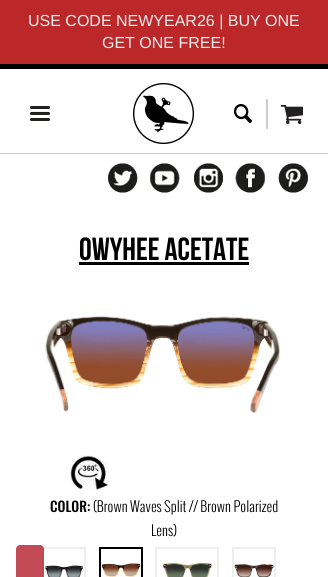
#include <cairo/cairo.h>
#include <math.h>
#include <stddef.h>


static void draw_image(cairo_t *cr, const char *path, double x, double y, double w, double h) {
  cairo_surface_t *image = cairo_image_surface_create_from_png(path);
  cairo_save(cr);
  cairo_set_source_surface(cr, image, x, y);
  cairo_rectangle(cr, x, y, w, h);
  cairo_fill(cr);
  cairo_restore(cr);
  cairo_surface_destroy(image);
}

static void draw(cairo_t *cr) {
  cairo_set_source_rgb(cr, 1, 1, 1);
  cairo_paint(cr);
  cairo_set_source_rgb(cr, 204 / 255.0, 204 / 255.0, 204 / 255.0);
  cairo_rectangle(cr, 0, 153, 328, 1);
  cairo_fill(cr);
  cairo_set_source_rgb(cr, 188 / 255.0, 39 / 255.0, 41 / 255.0);
  cairo_rectangle(cr, 0, 0, 328, 64);
  cairo_fill(cr);
  cairo_set_source_rgb(cr, 0, 0, 0);
  cairo_rectangle(cr, 0, 64, 328, 5);
  cairo_fill(cr);
  draw_image(cr, "images/1.png", 30, 106, 20, 15);
  draw_image(cr, "images/2.png", 133, 83, 61, 61);
  cairo_set_source_rgb(cr, 204 / 255.0, 204 / 255.0, 204 / 255.0);
  cairo_rectangle(cr, 266, 99, 2, 30);
  cairo_fill(cr);
  draw_image(cr, "images/3.png", 234, 104, 18, 19);
  draw_image(cr, "images/4.png", 281, 105, 22, 19);
  draw_image(cr, "images/5.png", 108, 163, 30, 30);
  draw_image(cr, "images/6.png", 150, 163, 30, 30);
  draw_image(cr, "images/7.png", 194, 163, 29, 30);
  draw_image(cr, "images/8.png", 235, 163, 30, 30);
  draw_image(cr, "images/9.png", 278, 163, 30, 30);
  cairo_set_source_rgb(cr, 0, 0, 0);
  cairo_rectangle(cr, 79, 262, 170, 3);
  cairo_fill(cr);
  draw_image(cr, "images/10.png", 45, 316, 235, 97);
  draw_image(cr, "images/11.png", 70, 455, 40, 35);
  cairo_rectangle(cr, 43, 548, 42, 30);
  cairo_set_source_rgb(cr, 238 / 255.0, 238 / 255.0, 238 / 255.0);
  cairo_stroke(cr);
  draw_image(cr, "images/12.png", 45, 565, 38, 12);
  cairo_rectangle(cr, 100, 548, 42, 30);
  cairo_set_source_rgb(cr, 0, 0, 0);
  cairo_stroke(cr);
  draw_image(cr, "images/13.png", 101, 549, 40, 28);
  cairo_rectangle(cr, 156, 548, 62, 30);
  cairo_set_source_rgb(cr, 238 / 255.0, 238 / 255.0, 238 / 255.0);
  cairo_stroke(cr);
  draw_image(cr, "images/14.png", 163, 561, 49, 16);
  cairo_rectangle(cr, 233, 548, 42, 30);
  cairo_stroke(cr);
  draw_image(cr, "images/15.png", 234, 564, 40, 13);
  cairo_set_source_rgba(cr, 180 / 255.0, 30 / 255.0, 43 / 255.0, 0.8);
  cairo_new_path(cr);
  cairo_move_to(cr, 20, 545);
  cairo_line_to(cr, 40, 545);
  cairo_curve_to(cr, 42, 545, 44, 547, 44, 549);
  cairo_line_to(cr, 44, 577);
  cairo_line_to(cr, 16, 577);
  cairo_line_to(cr, 16, 549);
  cairo_curve_to(cr, 16, 547, 18, 545, 20, 545);
  cairo_close_path(cr);
  cairo_fill(cr);
  cairo_select_font_face(cr, "Liberation Sans", CAIRO_FONT_SLANT_NORMAL, CAIRO_FONT_WEIGHT_NORMAL);
  cairo_set_font_size(cr, 16);
  cairo_set_source_rgb(cr, 238 / 255.0, 238 / 255.0, 238 / 255.0);
  cairo_move_to(cr, 28, 26);
  cairo_show_text(cr, "USE CODE NEWYEAR26 | BUY ONE");
  cairo_move_to(cr, 102, 48);
  cairo_show_text(cr, "GET ONE FREE!");
  cairo_select_font_face(cr, "Bebas Neue", CAIRO_FONT_SLANT_NORMAL, CAIRO_FONT_WEIGHT_NORMAL);
  cairo_set_font_size(cr, 32);
  cairo_set_source_rgb(cr, 0, 0, 0);
  cairo_move_to(cr, 79, 260);
  cairo_show_text(cr, "Owyhee Acetate");
  cairo_select_font_face(cr, "Oswald Medium", CAIRO_FONT_SLANT_NORMAL, CAIRO_FONT_WEIGHT_NORMAL);
  cairo_set_font_size(cr, 14);
  cairo_move_to(cr, 50, 512);
  cairo_show_text(cr, "COLOR:");
  cairo_select_font_face(cr, "Oswald Light", CAIRO_FONT_SLANT_NORMAL, CAIRO_FONT_WEIGHT_NORMAL);
  cairo_move_to(cr, 93, 512);
  cairo_show_text(cr, "(Brown Waves Split // Brown Polarized");
  cairo_move_to(cr, 151, 536);
  cairo_show_text(cr, "Lens)");
}

int main(void) {
  cairo_surface_t *surface = cairo_image_surface_create(CAIRO_FORMAT_RGB24, 328, 577);
  cairo_t *cr = cairo_create(surface);
  cairo_font_options_t *options = cairo_font_options_create();
  cairo_font_options_set_hint_metrics(options, CAIRO_HINT_METRICS_OFF);
  cairo_font_options_set_hint_style(options, CAIRO_HINT_STYLE_NONE);
  cairo_set_font_options(cr, options);
  cairo_set_miter_limit(cr, 4);
  draw(cr);
  cairo_surface_write_to_png(surface, "out.png");
  cairo_font_options_destroy(options);
  cairo_destroy(cr);
  cairo_surface_destroy(surface);
  return 0;
}
